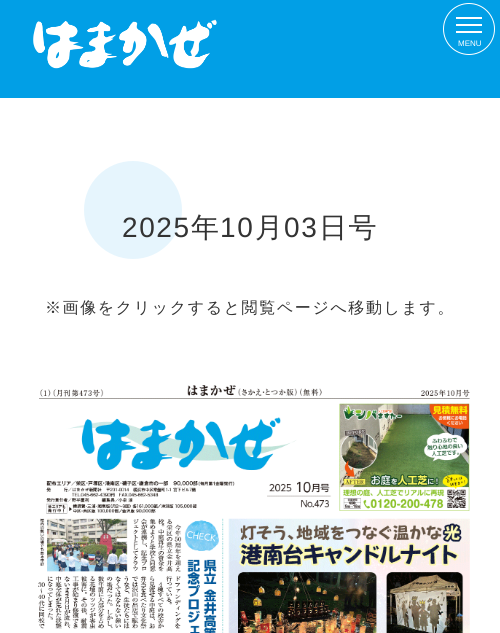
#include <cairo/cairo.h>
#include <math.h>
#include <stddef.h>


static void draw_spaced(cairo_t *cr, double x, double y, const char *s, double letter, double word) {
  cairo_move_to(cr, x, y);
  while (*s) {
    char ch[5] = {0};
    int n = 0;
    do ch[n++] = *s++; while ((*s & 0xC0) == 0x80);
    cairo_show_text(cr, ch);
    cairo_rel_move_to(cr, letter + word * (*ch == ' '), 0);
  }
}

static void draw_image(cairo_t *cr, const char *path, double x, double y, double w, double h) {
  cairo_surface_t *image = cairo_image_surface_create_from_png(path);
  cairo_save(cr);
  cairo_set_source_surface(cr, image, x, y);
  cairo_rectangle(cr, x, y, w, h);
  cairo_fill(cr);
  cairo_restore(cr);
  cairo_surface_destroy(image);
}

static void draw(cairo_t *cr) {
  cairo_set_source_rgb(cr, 1, 1, 1);
  cairo_paint(cr);
  cairo_set_source_rgb(cr, 1 / 255.0, 159 / 255.0, 230 / 255.0);
  cairo_rectangle(cr, 0, 0, 500, 98);
  cairo_fill(cr);
  draw_image(cr, "images/1.png", 33, 19, 184, 50);
  cairo_arc(cr, 469, 29, 25.5, 0, 2 * M_PI);
  cairo_set_source_rgb(cr, 1, 1, 1);
  cairo_set_line_width(cr, 1);
  cairo_stroke(cr);
  cairo_rectangle(cr, 456, 17, 26, 2);
  cairo_fill(cr);
  cairo_rectangle(cr, 456, 24, 26, 2);
  cairo_fill(cr);
  cairo_rectangle(cr, 456, 31, 26, 2);
  cairo_fill(cr);
  cairo_set_source_rgb(cr, 230 / 255.0, 245 / 255.0, 253 / 255.0);
  cairo_arc(cr, 133, 210, 49, 0, 2 * M_PI);
  cairo_fill(cr);
  draw_image(cr, "images/2.png", 38, 385, 432, 248);
  cairo_select_font_face(cr, "Liberation Sans", CAIRO_FONT_SLANT_NORMAL, CAIRO_FONT_WEIGHT_NORMAL);
  cairo_set_font_size(cr, 8);
  cairo_set_source_rgb(cr, 1, 1, 1);
  cairo_move_to(cr, 458, 46);
  cairo_show_text(cr, "MENU");
  cairo_select_font_face(cr, "WenQuanYi Zen Hei Medium", CAIRO_FONT_SLANT_NORMAL, CAIRO_FONT_WEIGHT_NORMAL);
  cairo_set_font_size(cr, 28);
  cairo_set_source_rgb(cr, 51 / 255.0, 51 / 255.0, 51 / 255.0);
  draw_spaced(cr, 191, 237, "年", 1.6, 0);
  draw_spaced(cr, 255, 237, "月", 1.6, 0);
  draw_spaced(cr, 319, 237, "日号", 1.6, 0);
  cairo_select_font_face(cr, "Liberation Sans", CAIRO_FONT_SLANT_NORMAL, CAIRO_FONT_WEIGHT_NORMAL);
  draw_spaced(cr, 122, 237, "2025", 1.6, 0);
  draw_spaced(cr, 220, 237, "10", 1.6, 0);
  draw_spaced(cr, 284, 237, "03", 1.6, 0);
  cairo_select_font_face(cr, "WenQuanYi Zen Hei Medium", CAIRO_FONT_SLANT_NORMAL, CAIRO_FONT_WEIGHT_NORMAL);
  cairo_set_font_size(cr, 16);
  draw_spaced(cr, 45, 313, "※画像をクリックすると閲覧ページへ移動します。", 1.6, 0);
}

int main(void) {
  cairo_surface_t *surface = cairo_image_surface_create(CAIRO_FORMAT_RGB24, 500, 633);
  cairo_t *cr = cairo_create(surface);
  cairo_font_options_t *options = cairo_font_options_create();
  cairo_font_options_set_hint_metrics(options, CAIRO_HINT_METRICS_OFF);
  cairo_font_options_set_hint_style(options, CAIRO_HINT_STYLE_NONE);
  cairo_set_font_options(cr, options);
  cairo_set_miter_limit(cr, 4);
  draw(cr);
  cairo_surface_write_to_png(surface, "out.png");
  cairo_font_options_destroy(options);
  cairo_destroy(cr);
  cairo_surface_destroy(surface);
  return 0;
}
